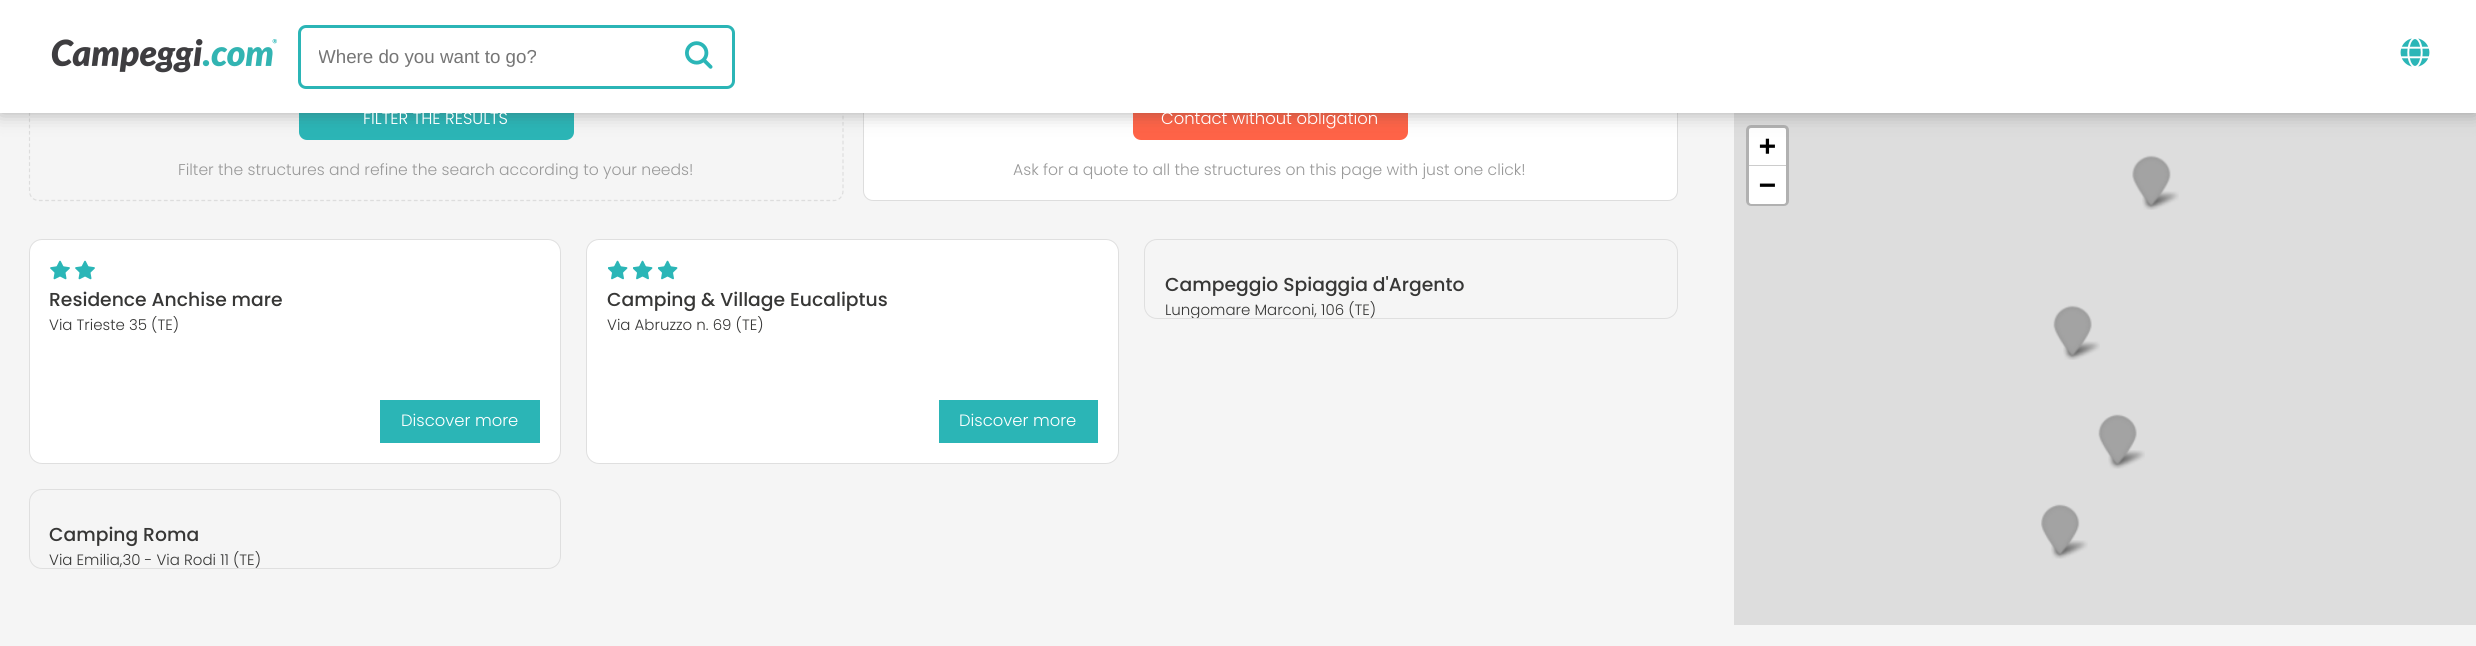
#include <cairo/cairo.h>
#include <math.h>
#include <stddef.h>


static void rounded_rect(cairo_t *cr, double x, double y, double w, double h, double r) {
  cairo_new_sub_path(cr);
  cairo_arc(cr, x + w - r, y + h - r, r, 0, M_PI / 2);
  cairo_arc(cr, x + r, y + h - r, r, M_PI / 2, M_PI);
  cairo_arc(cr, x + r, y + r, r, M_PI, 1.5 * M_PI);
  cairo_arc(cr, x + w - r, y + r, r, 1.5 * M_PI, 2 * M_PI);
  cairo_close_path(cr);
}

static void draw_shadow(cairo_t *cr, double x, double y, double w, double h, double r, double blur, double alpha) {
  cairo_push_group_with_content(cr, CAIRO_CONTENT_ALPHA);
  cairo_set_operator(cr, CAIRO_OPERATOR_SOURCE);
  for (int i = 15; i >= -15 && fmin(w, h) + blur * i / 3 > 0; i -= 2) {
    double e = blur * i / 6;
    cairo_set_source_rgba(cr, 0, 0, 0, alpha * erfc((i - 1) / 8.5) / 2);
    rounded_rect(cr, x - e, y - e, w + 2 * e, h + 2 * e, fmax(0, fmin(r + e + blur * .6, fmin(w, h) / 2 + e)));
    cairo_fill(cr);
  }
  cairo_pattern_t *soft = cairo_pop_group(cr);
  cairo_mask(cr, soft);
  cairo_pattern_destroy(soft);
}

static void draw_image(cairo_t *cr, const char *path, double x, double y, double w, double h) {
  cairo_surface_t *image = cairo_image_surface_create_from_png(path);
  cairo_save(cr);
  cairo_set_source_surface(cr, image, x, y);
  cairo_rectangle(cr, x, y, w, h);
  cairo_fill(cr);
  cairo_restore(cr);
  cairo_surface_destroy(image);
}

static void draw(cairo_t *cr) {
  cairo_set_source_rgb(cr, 245 / 255.0, 245 / 255.0, 245 / 255.0);
  cairo_paint(cr);
  cairo_new_path(cr);
  cairo_move_to(cr, 39, 9.5);
  cairo_line_to(cr, 834, 9.5);
  cairo_curve_to(cr, 839, 9.5, 843, 13.5, 843, 19);
  cairo_line_to(cr, 843, 191);
  cairo_curve_to(cr, 843, 196.5, 839, 200.5, 834, 200.5);
  cairo_line_to(cr, 39, 200.5);
  cairo_curve_to(cr, 33.5, 200.5, 29.5, 196.5, 29.5, 191);
  cairo_line_to(cr, 29.5, 19);
  cairo_curve_to(cr, 29.5, 13.5, 33.5, 9.5, 39, 9.5);
  cairo_close_path(cr);
  cairo_set_source_rgb(cr, 221 / 255.0, 221 / 255.0, 221 / 255.0);
  cairo_set_line_width(cr, 1.2);
  cairo_set_dash(cr, (double[]){3.75, 2.5}, 2, 0);
  cairo_stroke(cr);
  cairo_set_source_rgb(cr, 43 / 255.0, 181 / 255.0, 182 / 255.0);
  rounded_rect(cr, 300.5, 99.5, 272, 39, 6.5);
  cairo_fill_preserve(cr);
  cairo_set_line_width(cr, 3);
  cairo_set_dash(cr, NULL, 0, 0);
  cairo_stroke(cr);
  cairo_set_source_rgb(cr, 1, 1, 1);
  rounded_rect(cr, 863.5, 9.5, 814, 191, 9.5);
  cairo_fill_preserve(cr);
  cairo_set_source_rgb(cr, 221 / 255.0, 221 / 255.0, 221 / 255.0);
  cairo_set_line_width(cr, 1);
  cairo_stroke(cr);
  cairo_set_source_rgb(cr, 1, 99 / 255.0, 71 / 255.0);
  rounded_rect(cr, 1134.5, 99.5, 272, 39, 6.5);
  cairo_fill_preserve(cr);
  cairo_set_line_width(cr, 3);
  cairo_stroke(cr);
  cairo_set_source_rgb(cr, 221 / 255.0, 221 / 255.0, 221 / 255.0);
  cairo_rectangle(cr, 1734, 113, 742, 512);
  cairo_fill(cr);
  rounded_rect(cr, 1747.5, 126.5, 40, 78, 3.5);
  cairo_set_source_rgb(cr, 177 / 255.0, 177 / 255.0, 177 / 255.0);
  cairo_stroke(cr);
  cairo_set_source_rgb(cr, 1, 1, 1);
  cairo_new_path(cr);
  cairo_move_to(cr, 1751.5, 128);
  cairo_line_to(cr, 1783.5, 128);
  cairo_curve_to(cr, 1785, 128, 1786, 129, 1786, 130.5);
  cairo_line_to(cr, 1786, 166);
  cairo_line_to(cr, 1749, 166);
  cairo_line_to(cr, 1749, 130.5);
  cairo_curve_to(cr, 1749, 129, 1750, 128, 1751.5, 128);
  cairo_close_path(cr);
  cairo_fill(cr);
  cairo_set_source_rgb(cr, 60 / 255.0, 60 / 255.0, 60 / 255.0);
  draw_shadow(cr, 0, 0, 2476, 113, 0, 9.5, 0.4);
  cairo_set_source_rgb(cr, 1, 1, 1);
  cairo_rectangle(cr, 0, 0, 2476, 113);
  cairo_fill(cr);
  draw_image(cr, "images/1.png", 51, 39, 226, 34);
  rounded_rect(cr, 299.5, 26.5, 434, 61, 6.5);
  cairo_set_source_rgb(cr, 43 / 255.0, 181 / 255.0, 182 / 255.0);
  cairo_stroke(cr);
  draw_image(cr, "images/2.png", 685, 41, 28, 28);
  draw_image(cr, "images/3.png", 2400, 38, 30, 29);
  cairo_set_source_rgb(cr, 1, 1, 1);
  rounded_rect(cr, 29.5, 239.5, 531, 224, 12.5);
  cairo_fill_preserve(cr);
  cairo_set_source_rgb(cr, 223 / 255.0, 223 / 255.0, 223 / 255.0);
  cairo_set_line_width(cr, 1);
  cairo_stroke(cr);
  draw_image(cr, "images/4.png", 50, 260, 20, 20);
  draw_image(cr, "images/4.png", 75, 260, 20, 20);
  cairo_set_source_rgb(cr, 43 / 255.0, 181 / 255.0, 182 / 255.0);
  cairo_rectangle(cr, 380, 400, 160, 43);
  cairo_fill(cr);
  cairo_set_source_rgb(cr, 1, 1, 1);
  rounded_rect(cr, 586.5, 239.5, 532, 224, 12.5);
  cairo_fill_preserve(cr);
  cairo_set_source_rgb(cr, 223 / 255.0, 223 / 255.0, 223 / 255.0);
  cairo_stroke(cr);
  draw_image(cr, "images/5.png", 608, 260, 20, 20);
  draw_image(cr, "images/5.png", 633, 260, 20, 20);
  draw_image(cr, "images/5.png", 658, 260, 20, 20);
  cairo_set_source_rgb(cr, 43 / 255.0, 181 / 255.0, 182 / 255.0);
  cairo_rectangle(cr, 939, 400, 159, 43);
  cairo_fill(cr);
  rounded_rect(cr, 1144.5, 239.5, 533, 79, 12.5);
  cairo_set_source_rgb(cr, 223 / 255.0, 223 / 255.0, 223 / 255.0);
  cairo_stroke(cr);
  rounded_rect(cr, 29.5, 489.5, 531, 79, 12.5);
  cairo_stroke(cr);
  cairo_set_source_rgb(cr, 204 / 255.0, 204 / 255.0, 204 / 255.0);
  cairo_rectangle(cr, 1749, 165, 37, 1);
  cairo_fill(cr);
  cairo_set_source_rgb(cr, 1, 1, 1);
  cairo_new_path(cr);
  cairo_move_to(cr, 1749, 166);
  cairo_line_to(cr, 1786, 166);
  cairo_line_to(cr, 1786, 201.5);
  cairo_curve_to(cr, 1786, 203, 1785, 204, 1783.5, 204);
  cairo_line_to(cr, 1751.5, 204);
  cairo_curve_to(cr, 1750, 204, 1749, 203, 1749, 201.5);
  cairo_close_path(cr);
  cairo_fill(cr);
  draw_image(cr, "images/10.png", 2142, 191, 37, 19);
  draw_image(cr, "images/6.png", 2132, 155, 39, 52);
  draw_image(cr, "images/11.png", 2063, 341, 37, 19);
  draw_image(cr, "images/7.png", 2053, 305, 39, 52);
  draw_image(cr, "images/12.png", 2108, 450, 37, 19);
  draw_image(cr, "images/8.png", 2098, 414, 39, 51);
  draw_image(cr, "images/13.png", 2051, 540, 37, 19);
  draw_image(cr, "images/9.png", 2041, 504, 39, 52);
  cairo_save(cr);
  cairo_rectangle(cr, 319, 46, 349, 22);
  cairo_clip(cr);
  cairo_select_font_face(cr, "Liberation Sans", CAIRO_FONT_SLANT_NORMAL, CAIRO_FONT_WEIGHT_NORMAL);
  cairo_set_font_size(cr, 18.75);
  cairo_set_source_rgb(cr, 117 / 255.0, 117 / 255.0, 117 / 255.0);
  cairo_move_to(cr, 318, 63);
  cairo_show_text(cr, "Where do you want to go?");
  cairo_restore(cr);
  cairo_select_font_face(cr, "Poppins Light", CAIRO_FONT_SLANT_NORMAL, CAIRO_FONT_WEIGHT_NORMAL);
  cairo_set_font_size(cr, 16.4);
  cairo_move_to(cr, 363, 124);
  cairo_show_text(cr, "FILTER THE RESULTS");
  cairo_set_font_size(cr, 15.6);
  cairo_set_source_rgb(cr, 153 / 255.0, 153 / 255.0, 153 / 255.0);
  cairo_move_to(cr, 178, 175);
  cairo_show_text(cr, "Filter the structures and refine the search according to your needs!");
  cairo_set_font_size(cr, 16.4);
  cairo_set_source_rgb(cr, 1, 1, 1);
  cairo_move_to(cr, 1161, 124);
  cairo_show_text(cr, "Contact without obligation");
  cairo_set_font_size(cr, 15.6);
  cairo_set_source_rgb(cr, 153 / 255.0, 153 / 255.0, 153 / 255.0);
  cairo_move_to(cr, 1013, 175);
  cairo_show_text(cr, "Ask for a quote to all the structures on this page with just one click!");
  cairo_select_font_face(cr, "Poppins Medium", CAIRO_FONT_SLANT_NORMAL, CAIRO_FONT_WEIGHT_NORMAL);
  cairo_set_font_size(cr, 18.75);
  cairo_set_source_rgb(cr, 55 / 255.0, 55 / 255.0, 54 / 255.0);
  cairo_move_to(cr, 49, 306);
  cairo_show_text(cr, "Residence Anchise mare");
  cairo_select_font_face(cr, "Poppins Light", CAIRO_FONT_SLANT_NORMAL, CAIRO_FONT_WEIGHT_NORMAL);
  cairo_set_font_size(cr, 15);
  cairo_move_to(cr, 49, 330);
  cairo_show_text(cr, "Via Trieste 35 (TE)");
  cairo_set_font_size(cr, 16.4);
  cairo_set_source_rgb(cr, 1, 1, 1);
  cairo_move_to(cr, 401, 426);
  cairo_show_text(cr, "Discover more");
  cairo_select_font_face(cr, "Poppins Medium", CAIRO_FONT_SLANT_NORMAL, CAIRO_FONT_WEIGHT_NORMAL);
  cairo_set_font_size(cr, 18.75);
  cairo_set_source_rgb(cr, 55 / 255.0, 55 / 255.0, 54 / 255.0);
  cairo_move_to(cr, 607, 306);
  cairo_show_text(cr, "Camping & Village Eucaliptus");
  cairo_select_font_face(cr, "Poppins Light", CAIRO_FONT_SLANT_NORMAL, CAIRO_FONT_WEIGHT_NORMAL);
  cairo_set_font_size(cr, 15);
  cairo_move_to(cr, 607, 330);
  cairo_show_text(cr, "Via Abruzzo n. 69 (TE)");
  cairo_set_font_size(cr, 16.4);
  cairo_set_source_rgb(cr, 1, 1, 1);
  cairo_move_to(cr, 959, 426);
  cairo_show_text(cr, "Discover more");
  cairo_select_font_face(cr, "Poppins Medium", CAIRO_FONT_SLANT_NORMAL, CAIRO_FONT_WEIGHT_NORMAL);
  cairo_set_font_size(cr, 18.75);
  cairo_set_source_rgb(cr, 55 / 255.0, 55 / 255.0, 54 / 255.0);
  cairo_move_to(cr, 1165, 291);
  cairo_show_text(cr, "Campeggio Spiaggia d'Argento");
  cairo_save(cr);
  rounded_rect(cr, 1145, 240, 531, 78, 11);
  cairo_clip(cr);
  cairo_select_font_face(cr, "Poppins Light", CAIRO_FONT_SLANT_NORMAL, CAIRO_FONT_WEIGHT_NORMAL);
  cairo_set_font_size(cr, 15);
  cairo_move_to(cr, 1165, 315);
  cairo_show_text(cr, "Lungomare Marconi, 106 (TE)");
  cairo_restore(cr);
  cairo_move_to(cr, 49, 541);
  cairo_show_text(cr, "Camping Roma");
  cairo_select_font_face(cr, "Poppins Light", CAIRO_FONT_SLANT_NORMAL, CAIRO_FONT_WEIGHT_NORMAL);
  cairo_set_font_size(cr, 15);
  cairo_move_to(cr, 49, 565);
  cairo_show_text(cr, "Via Emilia,30 - Via Rodi 11 (TE)");
  cairo_select_font_face(cr, "DejaVu Sans Mono", CAIRO_FONT_SLANT_NORMAL, CAIRO_FONT_WEIGHT_BOLD);
  cairo_set_font_size(cr, 28);
  cairo_set_source_rgb(cr, 0, 0, 0);
  cairo_move_to(cr, 1759, 155);
  cairo_show_text(cr, "+");
  cairo_move_to(cr, 1759, 194);
  cairo_show_text(cr, "−");
}

int main(void) {
  cairo_surface_t *surface = cairo_image_surface_create(CAIRO_FORMAT_RGB24, 2476, 646);
  cairo_t *cr = cairo_create(surface);
  cairo_font_options_t *options = cairo_font_options_create();
  cairo_font_options_set_hint_metrics(options, CAIRO_HINT_METRICS_OFF);
  cairo_font_options_set_hint_style(options, CAIRO_HINT_STYLE_NONE);
  cairo_set_font_options(cr, options);
  cairo_set_miter_limit(cr, 4);
  draw(cr);
  cairo_surface_write_to_png(surface, "out.png");
  cairo_font_options_destroy(options);
  cairo_destroy(cr);
  cairo_surface_destroy(surface);
  return 0;
}
